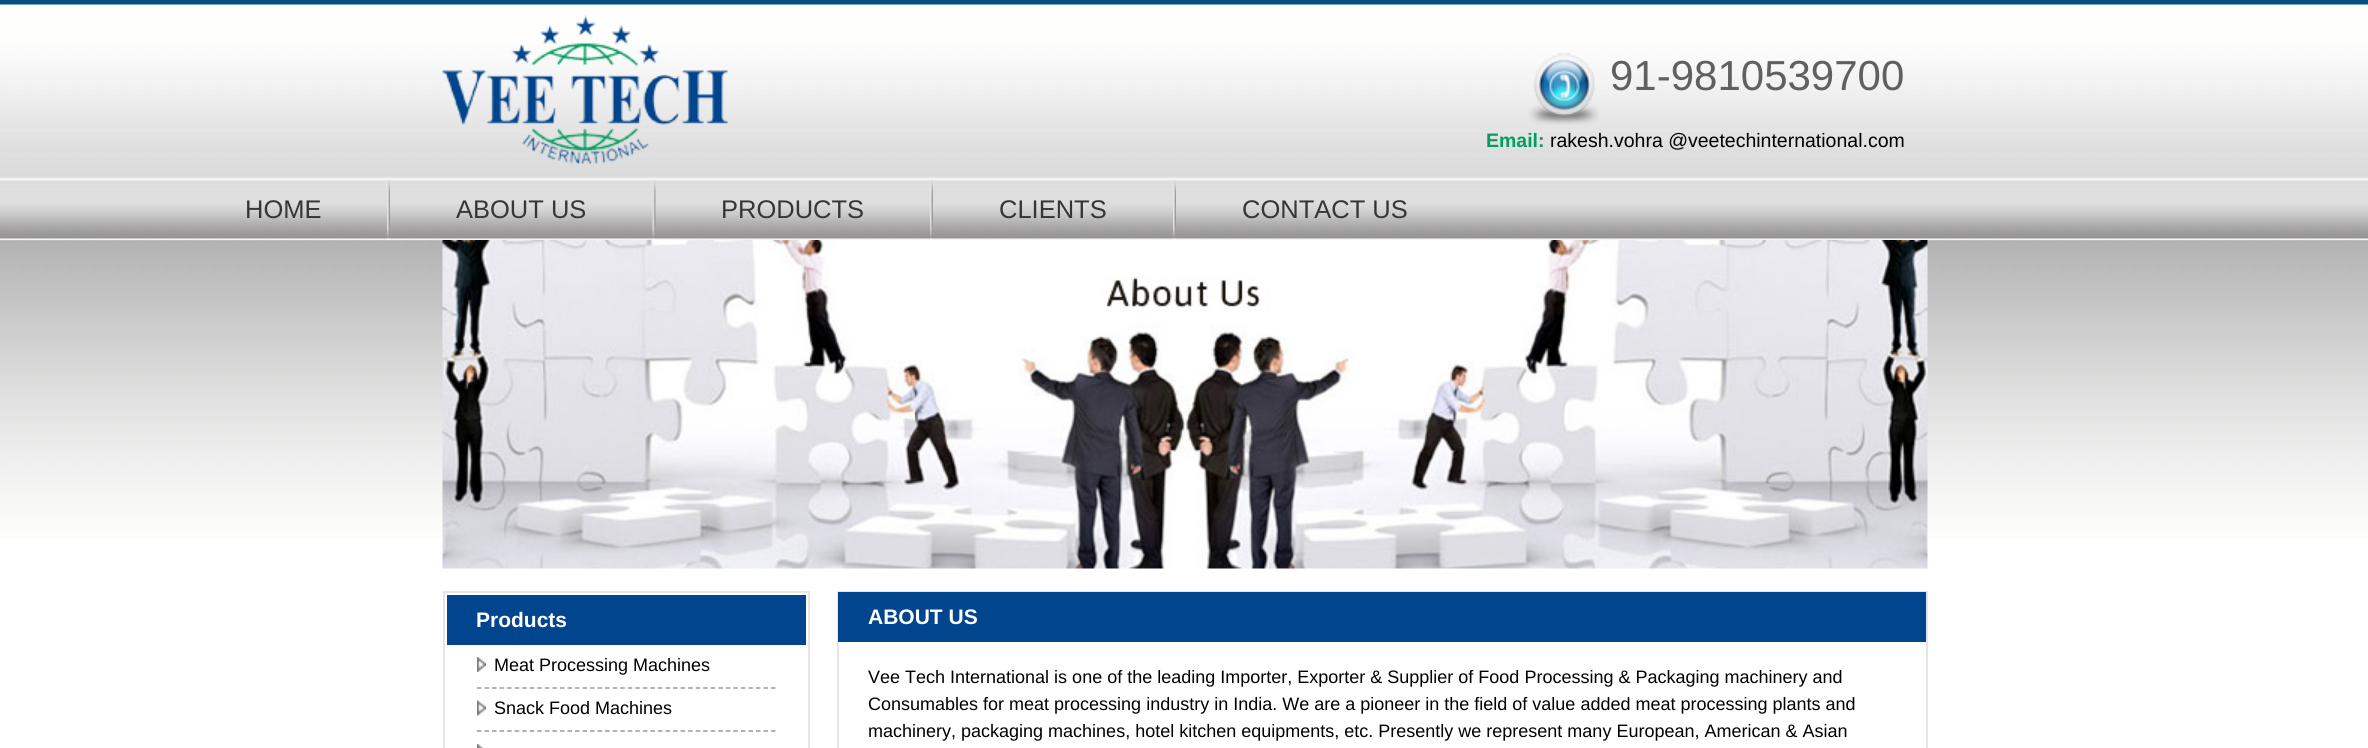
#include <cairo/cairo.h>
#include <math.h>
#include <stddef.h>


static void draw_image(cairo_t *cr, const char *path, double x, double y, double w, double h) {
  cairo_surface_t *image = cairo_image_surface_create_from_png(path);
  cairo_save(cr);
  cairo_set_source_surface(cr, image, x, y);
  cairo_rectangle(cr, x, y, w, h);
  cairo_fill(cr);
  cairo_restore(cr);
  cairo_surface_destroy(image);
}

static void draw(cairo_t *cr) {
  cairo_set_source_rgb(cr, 1, 1, 1);
  cairo_paint(cr);
  draw_image(cr, "images/1.png", 0, 0, 2368, 538);
  draw_image(cr, "images/2.png", 442, 15, 286, 149);
  draw_image(cr, "images/3.png", 1528, 52, 71, 73);
  draw_image(cr, "images/4.png", 387, 180, 3, 60);
  draw_image(cr, "images/5.png", 652, 180, 4, 60);
  draw_image(cr, "images/6.png", 930, 180, 3, 60);
  draw_image(cr, "images/4.png", 1173, 180, 3, 60);
  draw_image(cr, "images/7.png", 442, 240, 1486, 329);
  cairo_rectangle(cr, 444, 592, 365, 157);
  cairo_set_source_rgb(cr, 229 / 255.0, 229 / 255.0, 229 / 255.0);
  cairo_stroke(cr);
  cairo_set_source_rgb(cr, 1 / 255.0, 69 / 255.0, 142 / 255.0);
  cairo_rectangle(cr, 447, 595, 359, 50);
  cairo_fill(cr);
  cairo_new_path(cr);
  cairo_move_to(cr, 477, 688);
  cairo_line_to(cr, 775.5, 688);
  cairo_set_source_rgb(cr, 153 / 255.0, 153 / 255.0, 153 / 255.0);
  cairo_set_line_width(cr, 1.5);
  cairo_set_dash(cr, (double[]){4.5, 3.04}, 2, 0);
  cairo_stroke(cr);
  draw_image(cr, "images/8.png", 477, 657, 9, 15);
  cairo_new_path(cr);
  cairo_move_to(cr, 477, 731);
  cairo_line_to(cr, 775.5, 731);
  cairo_stroke(cr);
  draw_image(cr, "images/9.png", 477, 700, 9, 16);
  draw_image(cr, "images/10.png", 477, 744, 6, 4);
  cairo_rectangle(cr, 838, 592, 1089, 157);
  cairo_set_source_rgb(cr, 229 / 255.0, 229 / 255.0, 229 / 255.0);
  cairo_set_line_width(cr, 2);
  cairo_set_dash(cr, NULL, 0, 0);
  cairo_stroke(cr);
  cairo_set_source_rgb(cr, 1 / 255.0, 69 / 255.0, 142 / 255.0);
  cairo_rectangle(cr, 838, 592, 1088, 50);
  cairo_fill(cr);
  cairo_select_font_face(cr, "Liberation Sans", CAIRO_FONT_SLANT_NORMAL, CAIRO_FONT_WEIGHT_NORMAL);
  cairo_set_font_size(cr, 42);
  cairo_set_source_rgb(cr, 96 / 255.0, 96 / 255.0, 96 / 255.0);
  cairo_move_to(cr, 1610, 90);
  cairo_show_text(cr, "91-9810539700");
  cairo_select_font_face(cr, "Liberation Sans", CAIRO_FONT_SLANT_NORMAL, CAIRO_FONT_WEIGHT_BOLD);
  cairo_set_font_size(cr, 19.5);
  cairo_set_source_rgb(cr, 0, 158 / 255.0, 99 / 255.0);
  cairo_move_to(cr, 1486, 147);
  cairo_show_text(cr, "Email:");
  cairo_select_font_face(cr, "Liberation Sans", CAIRO_FONT_SLANT_NORMAL, CAIRO_FONT_WEIGHT_NORMAL);
  cairo_set_source_rgb(cr, 0, 0, 0);
  cairo_move_to(cr, 1550, 147);
  cairo_show_text(cr, "rakesh.vohra @veetechinternational.com");
  cairo_set_font_size(cr, 25.5);
  cairo_set_source_rgb(cr, 55 / 255.0, 54 / 255.0, 54 / 255.0);
  cairo_move_to(cr, 245, 218);
  cairo_show_text(cr, "HOME");
  cairo_move_to(cr, 456, 218);
  cairo_show_text(cr, "ABOUT US");
  cairo_move_to(cr, 721, 218);
  cairo_show_text(cr, "PRODUCTS");
  cairo_move_to(cr, 999, 218);
  cairo_show_text(cr, "CLIENTS");
  cairo_move_to(cr, 1242, 218);
  cairo_show_text(cr, "CONTACT US");
  cairo_select_font_face(cr, "Liberation Sans", CAIRO_FONT_SLANT_NORMAL, CAIRO_FONT_WEIGHT_BOLD);
  cairo_set_font_size(cr, 21);
  cairo_set_source_rgb(cr, 1, 1, 1);
  cairo_move_to(cr, 476, 627);
  cairo_show_text(cr, "Products");
  cairo_select_font_face(cr, "Liberation Sans", CAIRO_FONT_SLANT_NORMAL, CAIRO_FONT_WEIGHT_NORMAL);
  cairo_set_font_size(cr, 18);
  cairo_set_source_rgb(cr, 0, 0, 0);
  cairo_move_to(cr, 494, 671);
  cairo_show_text(cr, "Meat Processing Machines");
  cairo_move_to(cr, 494, 714);
  cairo_show_text(cr, "Snack Food Machines");
  cairo_select_font_face(cr, "Liberation Sans", CAIRO_FONT_SLANT_NORMAL, CAIRO_FONT_WEIGHT_BOLD);
  cairo_set_font_size(cr, 21);
  cairo_set_source_rgb(cr, 1, 1, 1);
  cairo_move_to(cr, 868, 624);
  cairo_show_text(cr, "ABOUT US");
  cairo_select_font_face(cr, "Liberation Sans", CAIRO_FONT_SLANT_NORMAL, CAIRO_FONT_WEIGHT_NORMAL);
  cairo_set_font_size(cr, 18);
  cairo_set_source_rgb(cr, 0, 0, 0);
  cairo_move_to(cr, 868, 683);
  cairo_show_text(cr, "Vee Tech International is one of the leading Importer, Exporter & Supplier of Food Processing & Packaging machinery and");
  cairo_move_to(cr, 868, 710);
  cairo_show_text(cr, "Consumables for meat processing industry in India. We are a pioneer in the field of value added meat processing plants and");
  cairo_move_to(cr, 868, 737);
  cairo_show_text(cr, "machinery, packaging machines, hotel kitchen equipments, etc. Presently we represent many European, American & Asian");
}

int main(void) {
  cairo_surface_t *surface = cairo_image_surface_create(CAIRO_FORMAT_RGB24, 2368, 748);
  cairo_t *cr = cairo_create(surface);
  cairo_font_options_t *options = cairo_font_options_create();
  cairo_font_options_set_hint_metrics(options, CAIRO_HINT_METRICS_OFF);
  cairo_font_options_set_hint_style(options, CAIRO_HINT_STYLE_NONE);
  cairo_set_font_options(cr, options);
  cairo_set_miter_limit(cr, 4);
  draw(cr);
  cairo_surface_write_to_png(surface, "out.png");
  cairo_font_options_destroy(options);
  cairo_destroy(cr);
  cairo_surface_destroy(surface);
  return 0;
}
